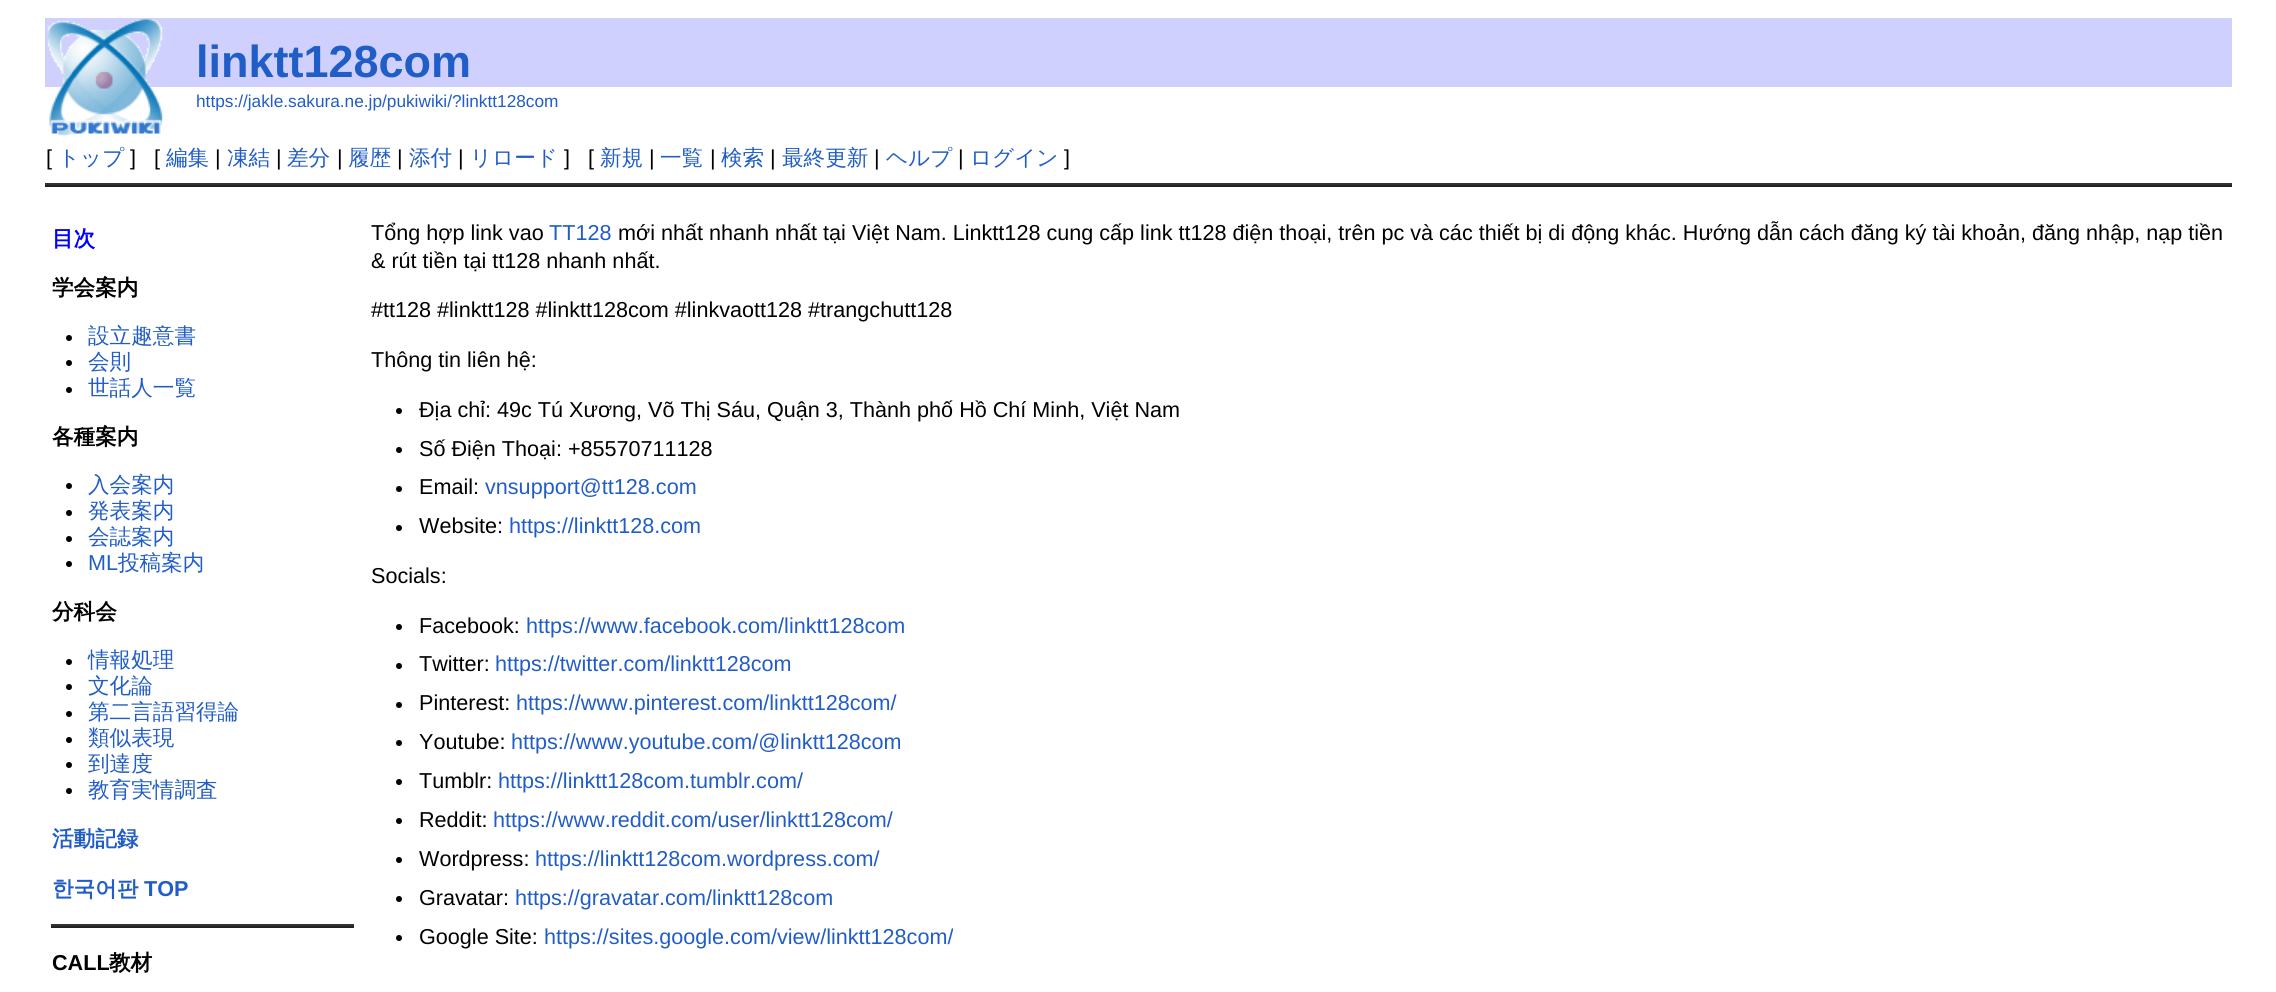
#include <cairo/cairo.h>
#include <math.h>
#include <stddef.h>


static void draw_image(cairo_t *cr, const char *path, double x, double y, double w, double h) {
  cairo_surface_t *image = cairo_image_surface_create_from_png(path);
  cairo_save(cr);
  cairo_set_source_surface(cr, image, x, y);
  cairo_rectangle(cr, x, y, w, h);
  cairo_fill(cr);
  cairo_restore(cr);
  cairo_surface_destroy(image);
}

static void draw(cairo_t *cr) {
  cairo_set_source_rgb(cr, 1, 1, 1);
  cairo_paint(cr);
  cairo_set_source_rgb(cr, 208 / 255.0, 208 / 255.0, 1);
  cairo_rectangle(cr, 45, 18, 2187, 69);
  cairo_fill(cr);
  draw_image(cr, "images/1.png", 47, 19, 116, 117);
  cairo_set_source_rgb(cr, 51 / 255.0, 51 / 255.0, 51 / 255.0);
  cairo_rectangle(cr, 45, 183, 2187, 2);
  cairo_fill(cr);
  cairo_set_source_rgb(cr, 34 / 255.0, 34 / 255.0, 34 / 255.0);
  cairo_rectangle(cr, 45, 185, 2187, 2);
  cairo_fill(cr);
  cairo_set_source_rgb(cr, 0, 0, 0);
  cairo_arc(cr, 69, 338, 3, 0, 2 * M_PI);
  cairo_fill(cr);
  cairo_arc(cr, 69, 363, 3, 0, 2 * M_PI);
  cairo_fill(cr);
  cairo_arc(cr, 69, 390, 3, 0, 2 * M_PI);
  cairo_fill(cr);
  cairo_arc(cr, 69, 486, 3, 0, 2 * M_PI);
  cairo_fill(cr);
  cairo_arc(cr, 69, 513, 3, 0, 2 * M_PI);
  cairo_fill(cr);
  cairo_arc(cr, 69, 539, 3, 0, 2 * M_PI);
  cairo_fill(cr);
  cairo_arc(cr, 69, 564, 3, 0, 2 * M_PI);
  cairo_fill(cr);
  cairo_arc(cr, 69, 662, 3, 0, 2 * M_PI);
  cairo_fill(cr);
  cairo_arc(cr, 69, 687, 3, 0, 2 * M_PI);
  cairo_fill(cr);
  cairo_arc(cr, 69, 714, 3, 0, 2 * M_PI);
  cairo_fill(cr);
  cairo_arc(cr, 69, 740, 3, 0, 2 * M_PI);
  cairo_fill(cr);
  cairo_arc(cr, 69, 765, 3, 0, 2 * M_PI);
  cairo_fill(cr);
  cairo_arc(cr, 69, 791, 3, 0, 2 * M_PI);
  cairo_fill(cr);
  cairo_set_source_rgb(cr, 51 / 255.0, 51 / 255.0, 51 / 255.0);
  cairo_rectangle(cr, 51, 924, 303, 2);
  cairo_fill(cr);
  cairo_set_source_rgb(cr, 34 / 255.0, 34 / 255.0, 34 / 255.0);
  cairo_rectangle(cr, 51, 926, 303, 2);
  cairo_fill(cr);
  cairo_set_source_rgb(cr, 0, 0, 0);
  cairo_arc(cr, 399, 411, 3, 0, 2 * M_PI);
  cairo_fill(cr);
  cairo_arc(cr, 399, 450, 3, 0, 2 * M_PI);
  cairo_fill(cr);
  cairo_arc(cr, 399, 489, 3, 0, 2 * M_PI);
  cairo_fill(cr);
  cairo_arc(cr, 399, 528, 3, 0, 2 * M_PI);
  cairo_fill(cr);
  cairo_arc(cr, 399, 627, 3, 0, 2 * M_PI);
  cairo_fill(cr);
  cairo_arc(cr, 399, 666, 3, 0, 2 * M_PI);
  cairo_fill(cr);
  cairo_arc(cr, 399, 705, 3, 0, 2 * M_PI);
  cairo_fill(cr);
  cairo_arc(cr, 399, 743, 3, 0, 2 * M_PI);
  cairo_fill(cr);
  cairo_arc(cr, 399, 782, 3, 0, 2 * M_PI);
  cairo_fill(cr);
  cairo_arc(cr, 399, 821, 3, 0, 2 * M_PI);
  cairo_fill(cr);
  cairo_arc(cr, 399, 860, 3, 0, 2 * M_PI);
  cairo_fill(cr);
  cairo_arc(cr, 399, 899, 3, 0, 2 * M_PI);
  cairo_fill(cr);
  cairo_arc(cr, 399, 938, 3, 0, 2 * M_PI);
  cairo_fill(cr);
  cairo_select_font_face(cr, "Liberation Sans", CAIRO_FONT_SLANT_NORMAL, CAIRO_FONT_WEIGHT_BOLD);
  cairo_set_font_size(cr, 45);
  cairo_set_source_rgb(cr, 33 / 255.0, 93 / 255.0, 198 / 255.0);
  cairo_move_to(cr, 196, 77);
  cairo_show_text(cr, "linktt128com");
  cairo_select_font_face(cr, "Liberation Sans", CAIRO_FONT_SLANT_NORMAL, CAIRO_FONT_WEIGHT_NORMAL);
  cairo_set_font_size(cr, 17.25);
  cairo_move_to(cr, 196, 107);
  cairo_show_text(cr, "https://jakle.sakura.ne.jp/pukiwiki/?linktt128com");
  cairo_set_font_size(cr, 21.6);
  cairo_set_source_rgb(cr, 0, 0, 0);
  cairo_move_to(cr, 46, 165);
  cairo_show_text(cr, "[");
  cairo_select_font_face(cr, "WenQuanYi Zen Hei Medium", CAIRO_FONT_SLANT_NORMAL, CAIRO_FONT_WEIGHT_NORMAL);
  cairo_set_source_rgb(cr, 33 / 255.0, 93 / 255.0, 198 / 255.0);
  cairo_move_to(cr, 58, 165);
  cairo_show_text(cr, "トップ");
  cairo_select_font_face(cr, "Liberation Sans", CAIRO_FONT_SLANT_NORMAL, CAIRO_FONT_WEIGHT_NORMAL);
  cairo_set_source_rgb(cr, 0, 0, 0);
  cairo_move_to(cr, 130, 165);
  cairo_show_text(cr, "]");
  cairo_move_to(cr, 154, 165);
  cairo_show_text(cr, "[");
  cairo_select_font_face(cr, "WenQuanYi Zen Hei Medium", CAIRO_FONT_SLANT_NORMAL, CAIRO_FONT_WEIGHT_NORMAL);
  cairo_set_source_rgb(cr, 33 / 255.0, 93 / 255.0, 198 / 255.0);
  cairo_move_to(cr, 166, 165);
  cairo_show_text(cr, "編集");
  cairo_select_font_face(cr, "Liberation Sans", CAIRO_FONT_SLANT_NORMAL, CAIRO_FONT_WEIGHT_NORMAL);
  cairo_set_source_rgb(cr, 0, 0, 0);
  cairo_move_to(cr, 215, 165);
  cairo_show_text(cr, "|");
  cairo_select_font_face(cr, "WenQuanYi Zen Hei Medium", CAIRO_FONT_SLANT_NORMAL, CAIRO_FONT_WEIGHT_NORMAL);
  cairo_set_source_rgb(cr, 33 / 255.0, 93 / 255.0, 198 / 255.0);
  cairo_move_to(cr, 227, 165);
  cairo_show_text(cr, "凍結");
  cairo_select_font_face(cr, "Liberation Sans", CAIRO_FONT_SLANT_NORMAL, CAIRO_FONT_WEIGHT_NORMAL);
  cairo_set_source_rgb(cr, 0, 0, 0);
  cairo_move_to(cr, 276, 165);
  cairo_show_text(cr, "|");
  cairo_select_font_face(cr, "WenQuanYi Zen Hei Medium", CAIRO_FONT_SLANT_NORMAL, CAIRO_FONT_WEIGHT_NORMAL);
  cairo_set_source_rgb(cr, 33 / 255.0, 93 / 255.0, 198 / 255.0);
  cairo_move_to(cr, 287, 165);
  cairo_show_text(cr, "差分");
  cairo_select_font_face(cr, "Liberation Sans", CAIRO_FONT_SLANT_NORMAL, CAIRO_FONT_WEIGHT_NORMAL);
  cairo_set_source_rgb(cr, 0, 0, 0);
  cairo_move_to(cr, 337, 165);
  cairo_show_text(cr, "|");
  cairo_select_font_face(cr, "WenQuanYi Zen Hei Medium", CAIRO_FONT_SLANT_NORMAL, CAIRO_FONT_WEIGHT_NORMAL);
  cairo_set_source_rgb(cr, 33 / 255.0, 93 / 255.0, 198 / 255.0);
  cairo_move_to(cr, 348, 165);
  cairo_show_text(cr, "履歴");
  cairo_select_font_face(cr, "Liberation Sans", CAIRO_FONT_SLANT_NORMAL, CAIRO_FONT_WEIGHT_NORMAL);
  cairo_set_source_rgb(cr, 0, 0, 0);
  cairo_move_to(cr, 397, 165);
  cairo_show_text(cr, "|");
  cairo_select_font_face(cr, "WenQuanYi Zen Hei Medium", CAIRO_FONT_SLANT_NORMAL, CAIRO_FONT_WEIGHT_NORMAL);
  cairo_set_source_rgb(cr, 33 / 255.0, 93 / 255.0, 198 / 255.0);
  cairo_move_to(cr, 409, 165);
  cairo_show_text(cr, "添付");
  cairo_select_font_face(cr, "Liberation Sans", CAIRO_FONT_SLANT_NORMAL, CAIRO_FONT_WEIGHT_NORMAL);
  cairo_set_source_rgb(cr, 0, 0, 0);
  cairo_move_to(cr, 458, 165);
  cairo_show_text(cr, "|");
  cairo_select_font_face(cr, "WenQuanYi Zen Hei Medium", CAIRO_FONT_SLANT_NORMAL, CAIRO_FONT_WEIGHT_NORMAL);
  cairo_set_source_rgb(cr, 33 / 255.0, 93 / 255.0, 198 / 255.0);
  cairo_move_to(cr, 470, 165);
  cairo_show_text(cr, "リロード");
  cairo_select_font_face(cr, "Liberation Sans", CAIRO_FONT_SLANT_NORMAL, CAIRO_FONT_WEIGHT_NORMAL);
  cairo_set_source_rgb(cr, 0, 0, 0);
  cairo_move_to(cr, 564, 165);
  cairo_show_text(cr, "]");
  cairo_move_to(cr, 588, 165);
  cairo_show_text(cr, "[");
  cairo_select_font_face(cr, "WenQuanYi Zen Hei Medium", CAIRO_FONT_SLANT_NORMAL, CAIRO_FONT_WEIGHT_NORMAL);
  cairo_set_source_rgb(cr, 33 / 255.0, 93 / 255.0, 198 / 255.0);
  cairo_move_to(cr, 600, 165);
  cairo_show_text(cr, "新規");
  cairo_select_font_face(cr, "Liberation Sans", CAIRO_FONT_SLANT_NORMAL, CAIRO_FONT_WEIGHT_NORMAL);
  cairo_set_source_rgb(cr, 0, 0, 0);
  cairo_move_to(cr, 649, 165);
  cairo_show_text(cr, "|");
  cairo_select_font_face(cr, "WenQuanYi Zen Hei Medium", CAIRO_FONT_SLANT_NORMAL, CAIRO_FONT_WEIGHT_NORMAL);
  cairo_set_source_rgb(cr, 33 / 255.0, 93 / 255.0, 198 / 255.0);
  cairo_move_to(cr, 660, 165);
  cairo_show_text(cr, "一覧");
  cairo_select_font_face(cr, "Liberation Sans", CAIRO_FONT_SLANT_NORMAL, CAIRO_FONT_WEIGHT_NORMAL);
  cairo_set_source_rgb(cr, 0, 0, 0);
  cairo_move_to(cr, 710, 165);
  cairo_show_text(cr, "|");
  cairo_select_font_face(cr, "WenQuanYi Zen Hei Medium", CAIRO_FONT_SLANT_NORMAL, CAIRO_FONT_WEIGHT_NORMAL);
  cairo_set_source_rgb(cr, 33 / 255.0, 93 / 255.0, 198 / 255.0);
  cairo_move_to(cr, 721, 165);
  cairo_show_text(cr, "検索");
  cairo_select_font_face(cr, "Liberation Sans", CAIRO_FONT_SLANT_NORMAL, CAIRO_FONT_WEIGHT_NORMAL);
  cairo_set_source_rgb(cr, 0, 0, 0);
  cairo_move_to(cr, 770, 165);
  cairo_show_text(cr, "|");
  cairo_select_font_face(cr, "WenQuanYi Zen Hei Medium", CAIRO_FONT_SLANT_NORMAL, CAIRO_FONT_WEIGHT_NORMAL);
  cairo_set_source_rgb(cr, 33 / 255.0, 93 / 255.0, 198 / 255.0);
  cairo_move_to(cr, 782, 165);
  cairo_show_text(cr, "最終更新");
  cairo_select_font_face(cr, "Liberation Sans", CAIRO_FONT_SLANT_NORMAL, CAIRO_FONT_WEIGHT_NORMAL);
  cairo_set_source_rgb(cr, 0, 0, 0);
  cairo_move_to(cr, 874, 165);
  cairo_show_text(cr, "|");
  cairo_select_font_face(cr, "WenQuanYi Zen Hei Medium", CAIRO_FONT_SLANT_NORMAL, CAIRO_FONT_WEIGHT_NORMAL);
  cairo_set_source_rgb(cr, 33 / 255.0, 93 / 255.0, 198 / 255.0);
  cairo_move_to(cr, 886, 165);
  cairo_show_text(cr, "ヘルプ");
  cairo_select_font_face(cr, "Liberation Sans", CAIRO_FONT_SLANT_NORMAL, CAIRO_FONT_WEIGHT_NORMAL);
  cairo_set_source_rgb(cr, 0, 0, 0);
  cairo_move_to(cr, 958, 165);
  cairo_show_text(cr, "|");
  cairo_select_font_face(cr, "WenQuanYi Zen Hei Medium", CAIRO_FONT_SLANT_NORMAL, CAIRO_FONT_WEIGHT_NORMAL);
  cairo_set_source_rgb(cr, 33 / 255.0, 93 / 255.0, 198 / 255.0);
  cairo_move_to(cr, 970, 165);
  cairo_show_text(cr, "ログイン");
  cairo_select_font_face(cr, "Liberation Sans", CAIRO_FONT_SLANT_NORMAL, CAIRO_FONT_WEIGHT_NORMAL);
  cairo_set_source_rgb(cr, 0, 0, 0);
  cairo_move_to(cr, 1064, 165);
  cairo_show_text(cr, "]");
  cairo_select_font_face(cr, "WenQuanYi Zen Hei", CAIRO_FONT_SLANT_NORMAL, CAIRO_FONT_WEIGHT_BOLD);
  cairo_set_source_rgb(cr, 0, 0, 1);
  cairo_move_to(cr, 52, 246);
  cairo_show_text(cr, "目次");
  cairo_set_source_rgb(cr, 0, 0, 0);
  cairo_move_to(cr, 52, 295);
  cairo_show_text(cr, "学会案内");
  cairo_select_font_face(cr, "WenQuanYi Zen Hei Medium", CAIRO_FONT_SLANT_NORMAL, CAIRO_FONT_WEIGHT_NORMAL);
  cairo_set_source_rgb(cr, 33 / 255.0, 93 / 255.0, 198 / 255.0);
  cairo_move_to(cr, 88, 343);
  cairo_show_text(cr, "設立趣意書");
  cairo_move_to(cr, 88, 369);
  cairo_show_text(cr, "会則");
  cairo_move_to(cr, 88, 395);
  cairo_show_text(cr, "世話人一覧");
  cairo_select_font_face(cr, "WenQuanYi Zen Hei", CAIRO_FONT_SLANT_NORMAL, CAIRO_FONT_WEIGHT_BOLD);
  cairo_set_source_rgb(cr, 0, 0, 0);
  cairo_move_to(cr, 52, 444);
  cairo_show_text(cr, "各種案内");
  cairo_select_font_face(cr, "WenQuanYi Zen Hei Medium", CAIRO_FONT_SLANT_NORMAL, CAIRO_FONT_WEIGHT_NORMAL);
  cairo_set_source_rgb(cr, 33 / 255.0, 93 / 255.0, 198 / 255.0);
  cairo_move_to(cr, 88, 492);
  cairo_show_text(cr, "入会案内");
  cairo_move_to(cr, 88, 518);
  cairo_show_text(cr, "発表案内");
  cairo_move_to(cr, 88, 544);
  cairo_show_text(cr, "会誌案内");
  cairo_select_font_face(cr, "Liberation Sans", CAIRO_FONT_SLANT_NORMAL, CAIRO_FONT_WEIGHT_NORMAL);
  cairo_move_to(cr, 88, 570);
  cairo_show_text(cr, "ML");
  cairo_select_font_face(cr, "WenQuanYi Zen Hei Medium", CAIRO_FONT_SLANT_NORMAL, CAIRO_FONT_WEIGHT_NORMAL);
  cairo_move_to(cr, 118, 570);
  cairo_show_text(cr, "投稿案内");
  cairo_select_font_face(cr, "WenQuanYi Zen Hei", CAIRO_FONT_SLANT_NORMAL, CAIRO_FONT_WEIGHT_BOLD);
  cairo_set_source_rgb(cr, 0, 0, 0);
  cairo_move_to(cr, 52, 619);
  cairo_show_text(cr, "分科会");
  cairo_select_font_face(cr, "WenQuanYi Zen Hei Medium", CAIRO_FONT_SLANT_NORMAL, CAIRO_FONT_WEIGHT_NORMAL);
  cairo_set_source_rgb(cr, 33 / 255.0, 93 / 255.0, 198 / 255.0);
  cairo_move_to(cr, 88, 667);
  cairo_show_text(cr, "情報処理");
  cairo_move_to(cr, 88, 693);
  cairo_show_text(cr, "文化論");
  cairo_move_to(cr, 88, 719);
  cairo_show_text(cr, "第二言語習得論");
  cairo_move_to(cr, 88, 745);
  cairo_show_text(cr, "類似表現");
  cairo_move_to(cr, 88, 771);
  cairo_show_text(cr, "到達度");
  cairo_move_to(cr, 88, 797);
  cairo_show_text(cr, "教育実情調査");
  cairo_select_font_face(cr, "WenQuanYi Zen Hei", CAIRO_FONT_SLANT_NORMAL, CAIRO_FONT_WEIGHT_BOLD);
  cairo_move_to(cr, 52, 846);
  cairo_show_text(cr, "活動記録");
  cairo_move_to(cr, 52, 896);
  cairo_show_text(cr, "한국어판");
  cairo_select_font_face(cr, "Liberation Sans", CAIRO_FONT_SLANT_NORMAL, CAIRO_FONT_WEIGHT_BOLD);
  cairo_move_to(cr, 144, 896);
  cairo_show_text(cr, "TOP");
  cairo_set_source_rgb(cr, 0, 0, 0);
  cairo_move_to(cr, 52, 970);
  cairo_show_text(cr, "CALL");
  cairo_select_font_face(cr, "WenQuanYi Zen Hei", CAIRO_FONT_SLANT_NORMAL, CAIRO_FONT_WEIGHT_BOLD);
  cairo_move_to(cr, 109, 970);
  cairo_show_text(cr, "教材");
  cairo_select_font_face(cr, "Liberation Sans", CAIRO_FONT_SLANT_NORMAL, CAIRO_FONT_WEIGHT_NORMAL);
  cairo_move_to(cr, 371, 240);
  cairo_show_text(cr, "Tổng hợp link vao");
  cairo_set_source_rgb(cr, 33 / 255.0, 93 / 255.0, 198 / 255.0);
  cairo_move_to(cr, 549, 240);
  cairo_show_text(cr, "TT128");
  cairo_set_source_rgb(cr, 0, 0, 0);
  cairo_move_to(cr, 618, 240);
  cairo_show_text(cr, "mới nhất nhanh nhất tại Việt Nam. Linktt128 cung cấp link tt128 điện thoại, trên pc và các thiết bị di động khác. Hướng dẫn cách đăng ký tài khoản, đăng nhập, nạp tiền");
  cairo_move_to(cr, 371, 268);
  cairo_show_text(cr, "& rút tiền tại tt128 nhanh nhất.");
  cairo_move_to(cr, 371, 317);
  cairo_show_text(cr, "#tt128 #linktt128 #linktt128com #linkvaott128 #trangchutt128");
  cairo_move_to(cr, 371, 367);
  cairo_show_text(cr, "Thông tin liên hệ:");
  cairo_move_to(cr, 419, 417);
  cairo_show_text(cr, "Địa chỉ: 49c Tú Xương, Võ Thị Sáu, Quận 3, Thành phố Hồ Chí Minh, Việt Nam");
  cairo_move_to(cr, 419, 456);
  cairo_show_text(cr, "Số Điện Thoại: +85570711128");
  cairo_move_to(cr, 419, 494);
  cairo_show_text(cr, "Email:");
  cairo_set_source_rgb(cr, 33 / 255.0, 93 / 255.0, 198 / 255.0);
  cairo_move_to(cr, 485, 494);
  cairo_show_text(cr, "vnsupport@tt128.com");
  cairo_set_source_rgb(cr, 0, 0, 0);
  cairo_move_to(cr, 419, 533);
  cairo_show_text(cr, "Website:");
  cairo_set_source_rgb(cr, 33 / 255.0, 93 / 255.0, 198 / 255.0);
  cairo_move_to(cr, 509, 533);
  cairo_show_text(cr, "https://linktt128.com");
  cairo_set_source_rgb(cr, 0, 0, 0);
  cairo_move_to(cr, 371, 583);
  cairo_show_text(cr, "Socials:");
  cairo_move_to(cr, 419, 633);
  cairo_show_text(cr, "Facebook:");
  cairo_set_source_rgb(cr, 33 / 255.0, 93 / 255.0, 198 / 255.0);
  cairo_move_to(cr, 526, 633);
  cairo_show_text(cr, "https://www.facebook.com/linktt128com");
  cairo_set_source_rgb(cr, 0, 0, 0);
  cairo_move_to(cr, 419, 671);
  cairo_show_text(cr, "Twitter:");
  cairo_set_source_rgb(cr, 33 / 255.0, 93 / 255.0, 198 / 255.0);
  cairo_move_to(cr, 495, 671);
  cairo_show_text(cr, "https://twitter.com/linktt128com");
  cairo_set_source_rgb(cr, 0, 0, 0);
  cairo_move_to(cr, 419, 710);
  cairo_show_text(cr, "Pinterest:");
  cairo_set_source_rgb(cr, 33 / 255.0, 93 / 255.0, 198 / 255.0);
  cairo_move_to(cr, 516, 710);
  cairo_show_text(cr, "https://www.pinterest.com/linktt128com/");
  cairo_set_source_rgb(cr, 0, 0, 0);
  cairo_move_to(cr, 419, 749);
  cairo_show_text(cr, "Youtube:");
  cairo_set_source_rgb(cr, 33 / 255.0, 93 / 255.0, 198 / 255.0);
  cairo_move_to(cr, 511, 749);
  cairo_show_text(cr, "https://www.youtube.com/@linktt128com");
  cairo_set_source_rgb(cr, 0, 0, 0);
  cairo_move_to(cr, 419, 788);
  cairo_show_text(cr, "Tumblr:");
  cairo_set_source_rgb(cr, 33 / 255.0, 93 / 255.0, 198 / 255.0);
  cairo_move_to(cr, 498, 788);
  cairo_show_text(cr, "https://linktt128com.tumblr.com/");
  cairo_set_source_rgb(cr, 0, 0, 0);
  cairo_move_to(cr, 419, 827);
  cairo_show_text(cr, "Reddit:");
  cairo_set_source_rgb(cr, 33 / 255.0, 93 / 255.0, 198 / 255.0);
  cairo_move_to(cr, 493, 827);
  cairo_show_text(cr, "https://www.reddit.com/user/linktt128com/");
  cairo_set_source_rgb(cr, 0, 0, 0);
  cairo_move_to(cr, 419, 866);
  cairo_show_text(cr, "Wordpress:");
  cairo_set_source_rgb(cr, 33 / 255.0, 93 / 255.0, 198 / 255.0);
  cairo_move_to(cr, 535, 866);
  cairo_show_text(cr, "https://linktt128com.wordpress.com/");
  cairo_set_source_rgb(cr, 0, 0, 0);
  cairo_move_to(cr, 419, 905);
  cairo_show_text(cr, "Gravatar:");
  cairo_set_source_rgb(cr, 33 / 255.0, 93 / 255.0, 198 / 255.0);
  cairo_move_to(cr, 515, 905);
  cairo_show_text(cr, "https://gravatar.com/linktt128com");
  cairo_set_source_rgb(cr, 0, 0, 0);
  cairo_move_to(cr, 419, 944);
  cairo_show_text(cr, "Google Site:");
  cairo_set_source_rgb(cr, 33 / 255.0, 93 / 255.0, 198 / 255.0);
  cairo_move_to(cr, 544, 944);
  cairo_show_text(cr, "https://sites.google.com/view/linktt128com/");
}

int main(void) {
  cairo_surface_t *surface = cairo_image_surface_create(CAIRO_FORMAT_RGB24, 2276, 992);
  cairo_t *cr = cairo_create(surface);
  cairo_font_options_t *options = cairo_font_options_create();
  cairo_font_options_set_hint_metrics(options, CAIRO_HINT_METRICS_OFF);
  cairo_font_options_set_hint_style(options, CAIRO_HINT_STYLE_NONE);
  cairo_set_font_options(cr, options);
  cairo_set_miter_limit(cr, 4);
  draw(cr);
  cairo_surface_write_to_png(surface, "out.png");
  cairo_font_options_destroy(options);
  cairo_destroy(cr);
  cairo_surface_destroy(surface);
  return 0;
}
